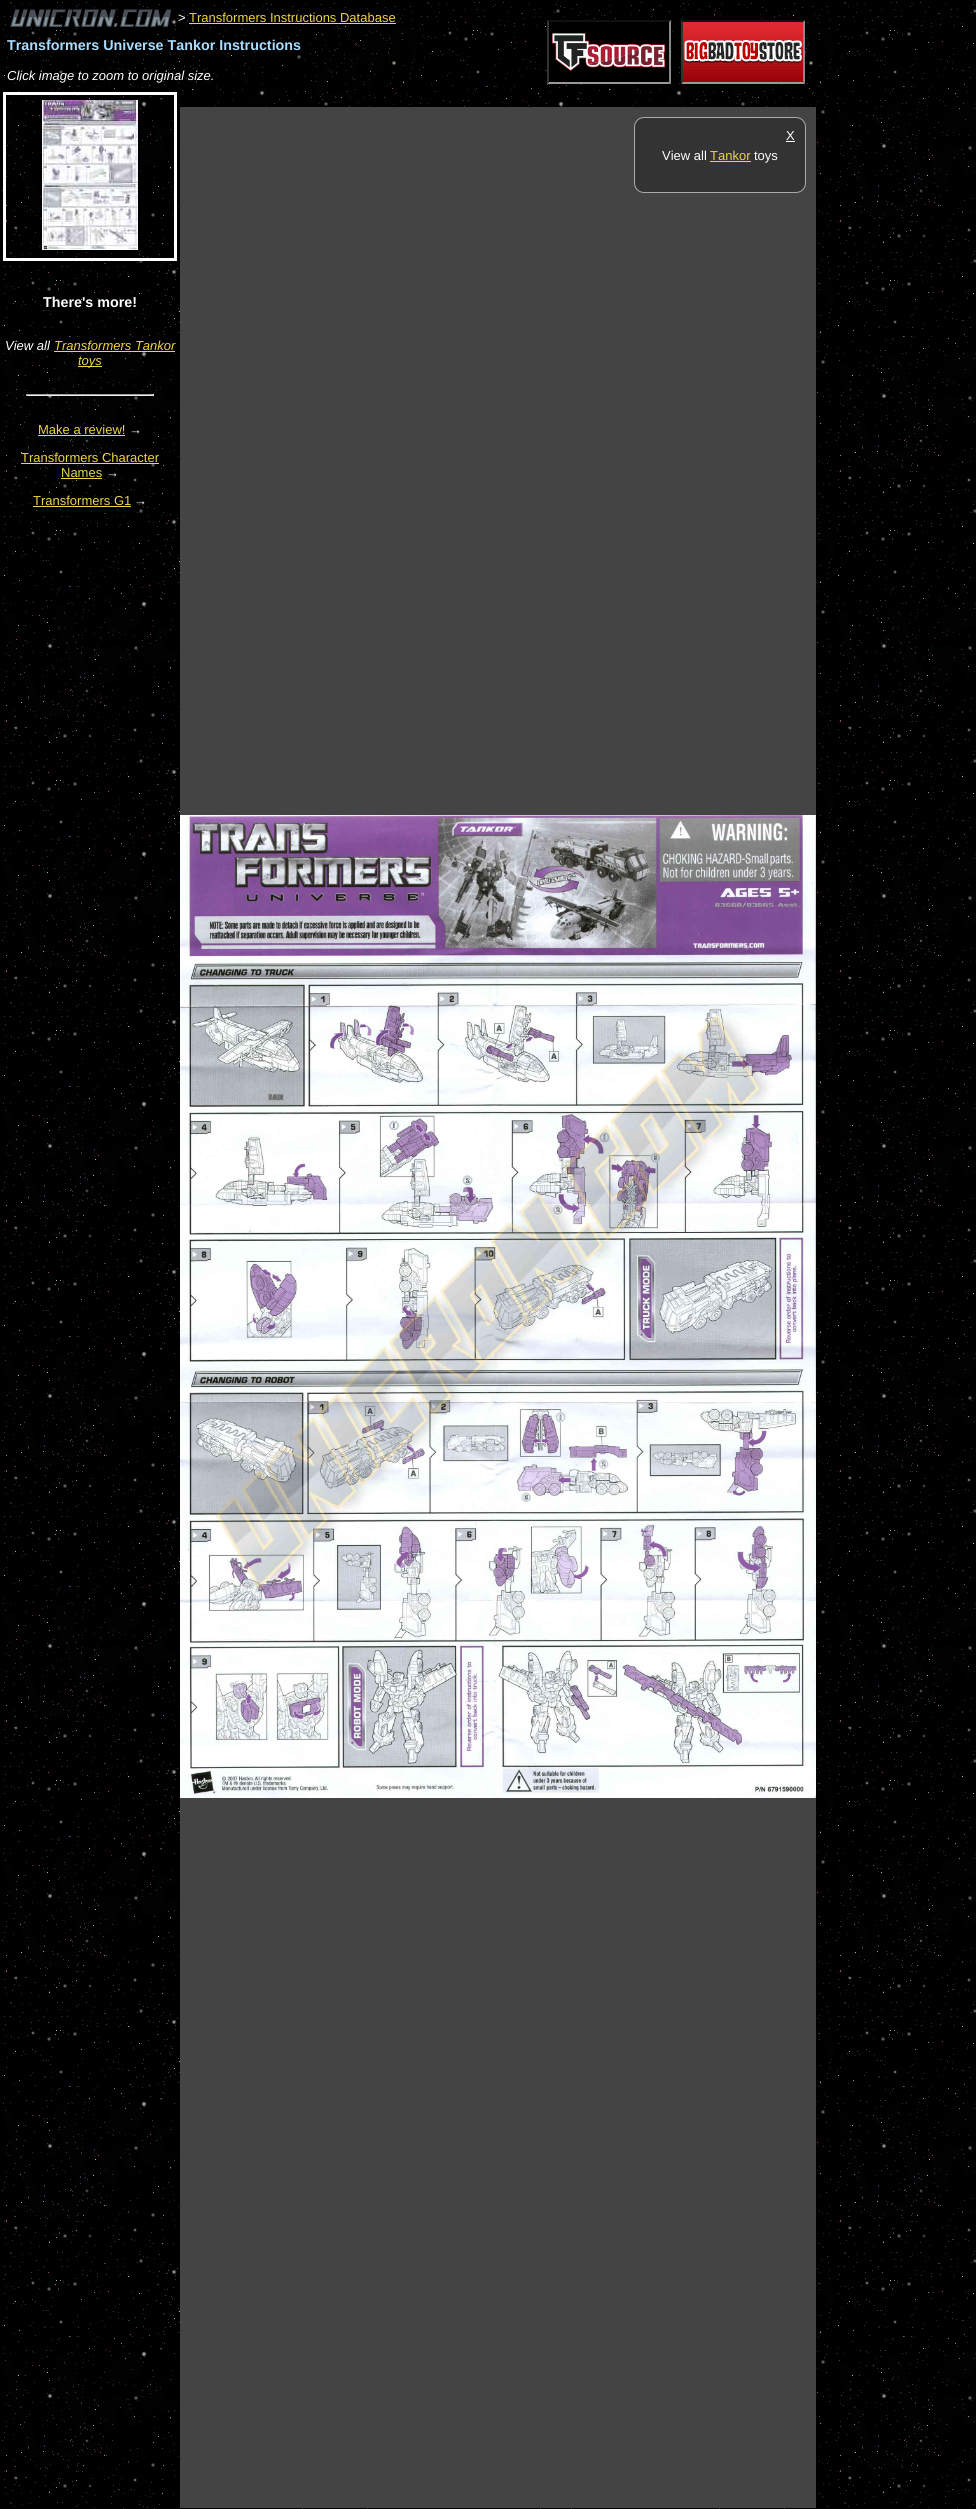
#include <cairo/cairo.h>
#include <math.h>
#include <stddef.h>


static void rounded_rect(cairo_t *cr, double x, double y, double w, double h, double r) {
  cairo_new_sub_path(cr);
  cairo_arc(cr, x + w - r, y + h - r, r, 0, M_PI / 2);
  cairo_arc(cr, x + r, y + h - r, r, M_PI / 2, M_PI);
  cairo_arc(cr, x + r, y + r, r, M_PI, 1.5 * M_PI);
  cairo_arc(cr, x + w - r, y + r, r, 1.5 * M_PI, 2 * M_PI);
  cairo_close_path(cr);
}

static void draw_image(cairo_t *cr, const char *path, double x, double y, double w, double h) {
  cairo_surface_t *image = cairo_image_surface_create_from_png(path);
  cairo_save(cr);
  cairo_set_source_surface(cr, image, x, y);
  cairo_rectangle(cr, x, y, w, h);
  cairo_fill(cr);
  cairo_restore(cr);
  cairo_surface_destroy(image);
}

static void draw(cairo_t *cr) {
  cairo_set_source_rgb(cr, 0, 0, 0);
  cairo_paint(cr);
  draw_image(cr, "images/1.png", 2, 1, 974, 2508);
  draw_image(cr, "images/2.png", 10, 8, 162, 20);
  cairo_set_source_rgb(cr, 237 / 255.0, 212 / 255.0, 72 / 255.0);
  cairo_rectangle(cr, 189, 23, 207, 1);
  cairo_fill(cr);
  cairo_set_source_rgb(cr, 17 / 255.0, 17 / 255.0, 17 / 255.0);
  cairo_new_path(cr);
  cairo_move_to(cr, 547, 20);
  cairo_line_to(cr, 671, 20);
  cairo_line_to(cr, 669, 22);
  cairo_line_to(cr, 549, 22);
  cairo_close_path(cr);
  cairo_fill(cr);
  cairo_set_source_rgb(cr, 136 / 255.0, 136 / 255.0, 136 / 255.0);
  cairo_new_path(cr);
  cairo_move_to(cr, 671, 20);
  cairo_line_to(cr, 671, 84);
  cairo_line_to(cr, 669, 82);
  cairo_line_to(cr, 669, 22);
  cairo_close_path(cr);
  cairo_fill(cr);
  cairo_set_source_rgb(cr, 153 / 255.0, 153 / 255.0, 153 / 255.0);
  cairo_new_path(cr);
  cairo_move_to(cr, 671, 84);
  cairo_line_to(cr, 547, 84);
  cairo_line_to(cr, 549, 82);
  cairo_line_to(cr, 669, 82);
  cairo_close_path(cr);
  cairo_fill(cr);
  cairo_set_source_rgb(cr, 51 / 255.0, 51 / 255.0, 51 / 255.0);
  cairo_new_path(cr);
  cairo_move_to(cr, 547, 84);
  cairo_line_to(cr, 547, 20);
  cairo_line_to(cr, 549, 22);
  cairo_line_to(cr, 549, 82);
  cairo_close_path(cr);
  cairo_fill(cr);
  cairo_set_source_rgb(cr, 17 / 255.0, 17 / 255.0, 17 / 255.0);
  cairo_new_path(cr);
  cairo_move_to(cr, 681, 20);
  cairo_line_to(cr, 805, 20);
  cairo_line_to(cr, 803, 22);
  cairo_line_to(cr, 683, 22);
  cairo_close_path(cr);
  cairo_fill(cr);
  draw_image(cr, "images/3.png", 550, 22, 116, 60);
  cairo_set_source_rgb(cr, 136 / 255.0, 136 / 255.0, 136 / 255.0);
  cairo_new_path(cr);
  cairo_move_to(cr, 805, 20);
  cairo_line_to(cr, 805, 84);
  cairo_line_to(cr, 803, 82);
  cairo_line_to(cr, 803, 22);
  cairo_close_path(cr);
  cairo_fill(cr);
  cairo_set_source_rgb(cr, 153 / 255.0, 153 / 255.0, 153 / 255.0);
  cairo_new_path(cr);
  cairo_move_to(cr, 805, 84);
  cairo_line_to(cr, 681, 84);
  cairo_line_to(cr, 683, 82);
  cairo_line_to(cr, 803, 82);
  cairo_close_path(cr);
  cairo_fill(cr);
  cairo_set_source_rgb(cr, 51 / 255.0, 51 / 255.0, 51 / 255.0);
  cairo_new_path(cr);
  cairo_move_to(cr, 681, 84);
  cairo_line_to(cr, 681, 20);
  cairo_line_to(cr, 683, 22);
  cairo_line_to(cr, 683, 82);
  cairo_close_path(cr);
  cairo_fill(cr);
  draw_image(cr, "images/4.png", 683, 22, 120, 60);
  cairo_set_source_rgb(cr, 68 / 255.0, 68 / 255.0, 68 / 255.0);
  cairo_rectangle(cr, 180, 107, 636, 2401);
  cairo_fill(cr);
  cairo_set_source_rgb(cr, 51 / 255.0, 51 / 255.0, 51 / 255.0);
  rounded_rect(cr, 634.5, 117.5, 171, 75, 9.5);
  cairo_fill_preserve(cr);
  cairo_set_source_rgb(cr, 170 / 255.0, 170 / 255.0, 170 / 255.0);
  cairo_set_line_width(cr, 1);
  cairo_stroke(cr);
  cairo_set_source_rgb(cr, 1, 1, 1);
  cairo_rectangle(cr, 786, 141, 9, 1);
  cairo_fill(cr);
  cairo_set_source_rgb(cr, 237 / 255.0, 212 / 255.0, 72 / 255.0);
  cairo_rectangle(cr, 710, 161, 41, 1);
  cairo_fill(cr);
  draw_image(cr, "images/5.png", 180, 815, 636, 983);
  cairo_rectangle(cr, 4.5, 93.5, 171, 166);
  cairo_set_source_rgb(cr, 1, 1, 1);
  cairo_set_line_width(cr, 3);
  cairo_stroke(cr);
  draw_image(cr, "images/6.png", 42, 100, 96, 150);
  cairo_set_source_rgb(cr, 237 / 255.0, 212 / 255.0, 72 / 255.0);
  cairo_rectangle(cr, 54, 351, 121, 1);
  cairo_fill(cr);
  cairo_rectangle(cr, 78, 366, 24, 1);
  cairo_fill(cr);
  cairo_set_source_rgb(cr, 159 / 255.0, 159 / 255.0, 159 / 255.0);
  cairo_rectangle(cr, 26, 394, 128, 1);
  cairo_fill(cr);
  cairo_set_source_rgb(cr, 238 / 255.0, 238 / 255.0, 238 / 255.0);
  cairo_rectangle(cr, 153, 394, 1, 2);
  cairo_fill(cr);
  cairo_rectangle(cr, 26, 395, 128, 1);
  cairo_fill(cr);
  cairo_set_source_rgb(cr, 159 / 255.0, 159 / 255.0, 159 / 255.0);
  cairo_rectangle(cr, 26, 394, 1, 2);
  cairo_fill(cr);
  cairo_set_source_rgb(cr, 237 / 255.0, 212 / 255.0, 72 / 255.0);
  cairo_rectangle(cr, 38, 435, 87, 1);
  cairo_fill(cr);
  cairo_rectangle(cr, 21, 463, 138, 1);
  cairo_fill(cr);
  cairo_rectangle(cr, 61, 478, 41, 1);
  cairo_fill(cr);
  cairo_rectangle(cr, 33, 506, 98, 1);
  cairo_fill(cr);
  cairo_select_font_face(cr, "Liberation Sans", CAIRO_FONT_SLANT_NORMAL, CAIRO_FONT_WEIGHT_NORMAL);
  cairo_set_font_size(cr, 13);
  cairo_set_source_rgb(cr, 1, 1, 1);
  cairo_move_to(cr, 178, 22);
  cairo_show_text(cr, ">");
  cairo_set_source_rgb(cr, 237 / 255.0, 212 / 255.0, 72 / 255.0);
  cairo_move_to(cr, 189, 22);
  cairo_show_text(cr, "Transformers Instructions Database");
  cairo_select_font_face(cr, "Liberation Sans", CAIRO_FONT_SLANT_NORMAL, CAIRO_FONT_WEIGHT_BOLD);
  cairo_set_font_size(cr, 14.3);
  cairo_set_source_rgb(cr, 170 / 255.0, 221 / 255.0, 1);
  cairo_move_to(cr, 7, 50);
  cairo_show_text(cr, "Transformers Universe Tankor Instructions");
  cairo_select_font_face(cr, "Liberation Sans", CAIRO_FONT_SLANT_ITALIC, CAIRO_FONT_WEIGHT_NORMAL);
  cairo_set_font_size(cr, 13);
  cairo_set_source_rgb(cr, 1, 1, 1);
  cairo_move_to(cr, 7, 80);
  cairo_show_text(cr, "Click image to zoom to original size.");
  cairo_select_font_face(cr, "Liberation Sans", CAIRO_FONT_SLANT_NORMAL, CAIRO_FONT_WEIGHT_NORMAL);
  cairo_move_to(cr, 786, 140);
  cairo_show_text(cr, "X");
  cairo_move_to(cr, 662, 160);
  cairo_show_text(cr, "View all");
  cairo_set_source_rgb(cr, 237 / 255.0, 212 / 255.0, 72 / 255.0);
  cairo_move_to(cr, 710, 160);
  cairo_show_text(cr, "Tankor");
  cairo_set_source_rgb(cr, 1, 1, 1);
  cairo_move_to(cr, 754, 160);
  cairo_show_text(cr, "toys");
  cairo_select_font_face(cr, "Liberation Sans", CAIRO_FONT_SLANT_NORMAL, CAIRO_FONT_WEIGHT_BOLD);
  cairo_set_font_size(cr, 14.3);
  cairo_move_to(cr, 43, 307);
  cairo_show_text(cr, "There's more!");
  cairo_select_font_face(cr, "Liberation Sans", CAIRO_FONT_SLANT_ITALIC, CAIRO_FONT_WEIGHT_NORMAL);
  cairo_set_font_size(cr, 13);
  cairo_move_to(cr, 5, 350);
  cairo_show_text(cr, "View all");
  cairo_set_source_rgb(cr, 237 / 255.0, 212 / 255.0, 72 / 255.0);
  cairo_move_to(cr, 54, 350);
  cairo_show_text(cr, "Transformers Tankor");
  cairo_move_to(cr, 78, 365);
  cairo_show_text(cr, "toys");
  cairo_select_font_face(cr, "Liberation Sans", CAIRO_FONT_SLANT_NORMAL, CAIRO_FONT_WEIGHT_NORMAL);
  cairo_move_to(cr, 38, 434);
  cairo_show_text(cr, "Make a review!");
  cairo_set_source_rgb(cr, 1, 1, 1);
  cairo_move_to(cr, 129, 434);
  cairo_show_text(cr, "→");
  cairo_set_source_rgb(cr, 237 / 255.0, 212 / 255.0, 72 / 255.0);
  cairo_move_to(cr, 21, 462);
  cairo_show_text(cr, "Transformers Character");
  cairo_move_to(cr, 61, 477);
  cairo_show_text(cr, "Names");
  cairo_set_source_rgb(cr, 1, 1, 1);
  cairo_move_to(cr, 106, 477);
  cairo_show_text(cr, "→");
  cairo_set_source_rgb(cr, 237 / 255.0, 212 / 255.0, 72 / 255.0);
  cairo_move_to(cr, 33, 505);
  cairo_show_text(cr, "Transformers G1");
  cairo_set_source_rgb(cr, 1, 1, 1);
  cairo_move_to(cr, 134, 505);
  cairo_show_text(cr, "→");
}

int main(void) {
  cairo_surface_t *surface = cairo_image_surface_create(CAIRO_FORMAT_RGB24, 976, 2509);
  cairo_t *cr = cairo_create(surface);
  cairo_font_options_t *options = cairo_font_options_create();
  cairo_font_options_set_hint_metrics(options, CAIRO_HINT_METRICS_OFF);
  cairo_font_options_set_hint_style(options, CAIRO_HINT_STYLE_NONE);
  cairo_set_font_options(cr, options);
  cairo_set_miter_limit(cr, 4);
  draw(cr);
  cairo_surface_write_to_png(surface, "out.png");
  cairo_font_options_destroy(options);
  cairo_destroy(cr);
  cairo_surface_destroy(surface);
  return 0;
}
